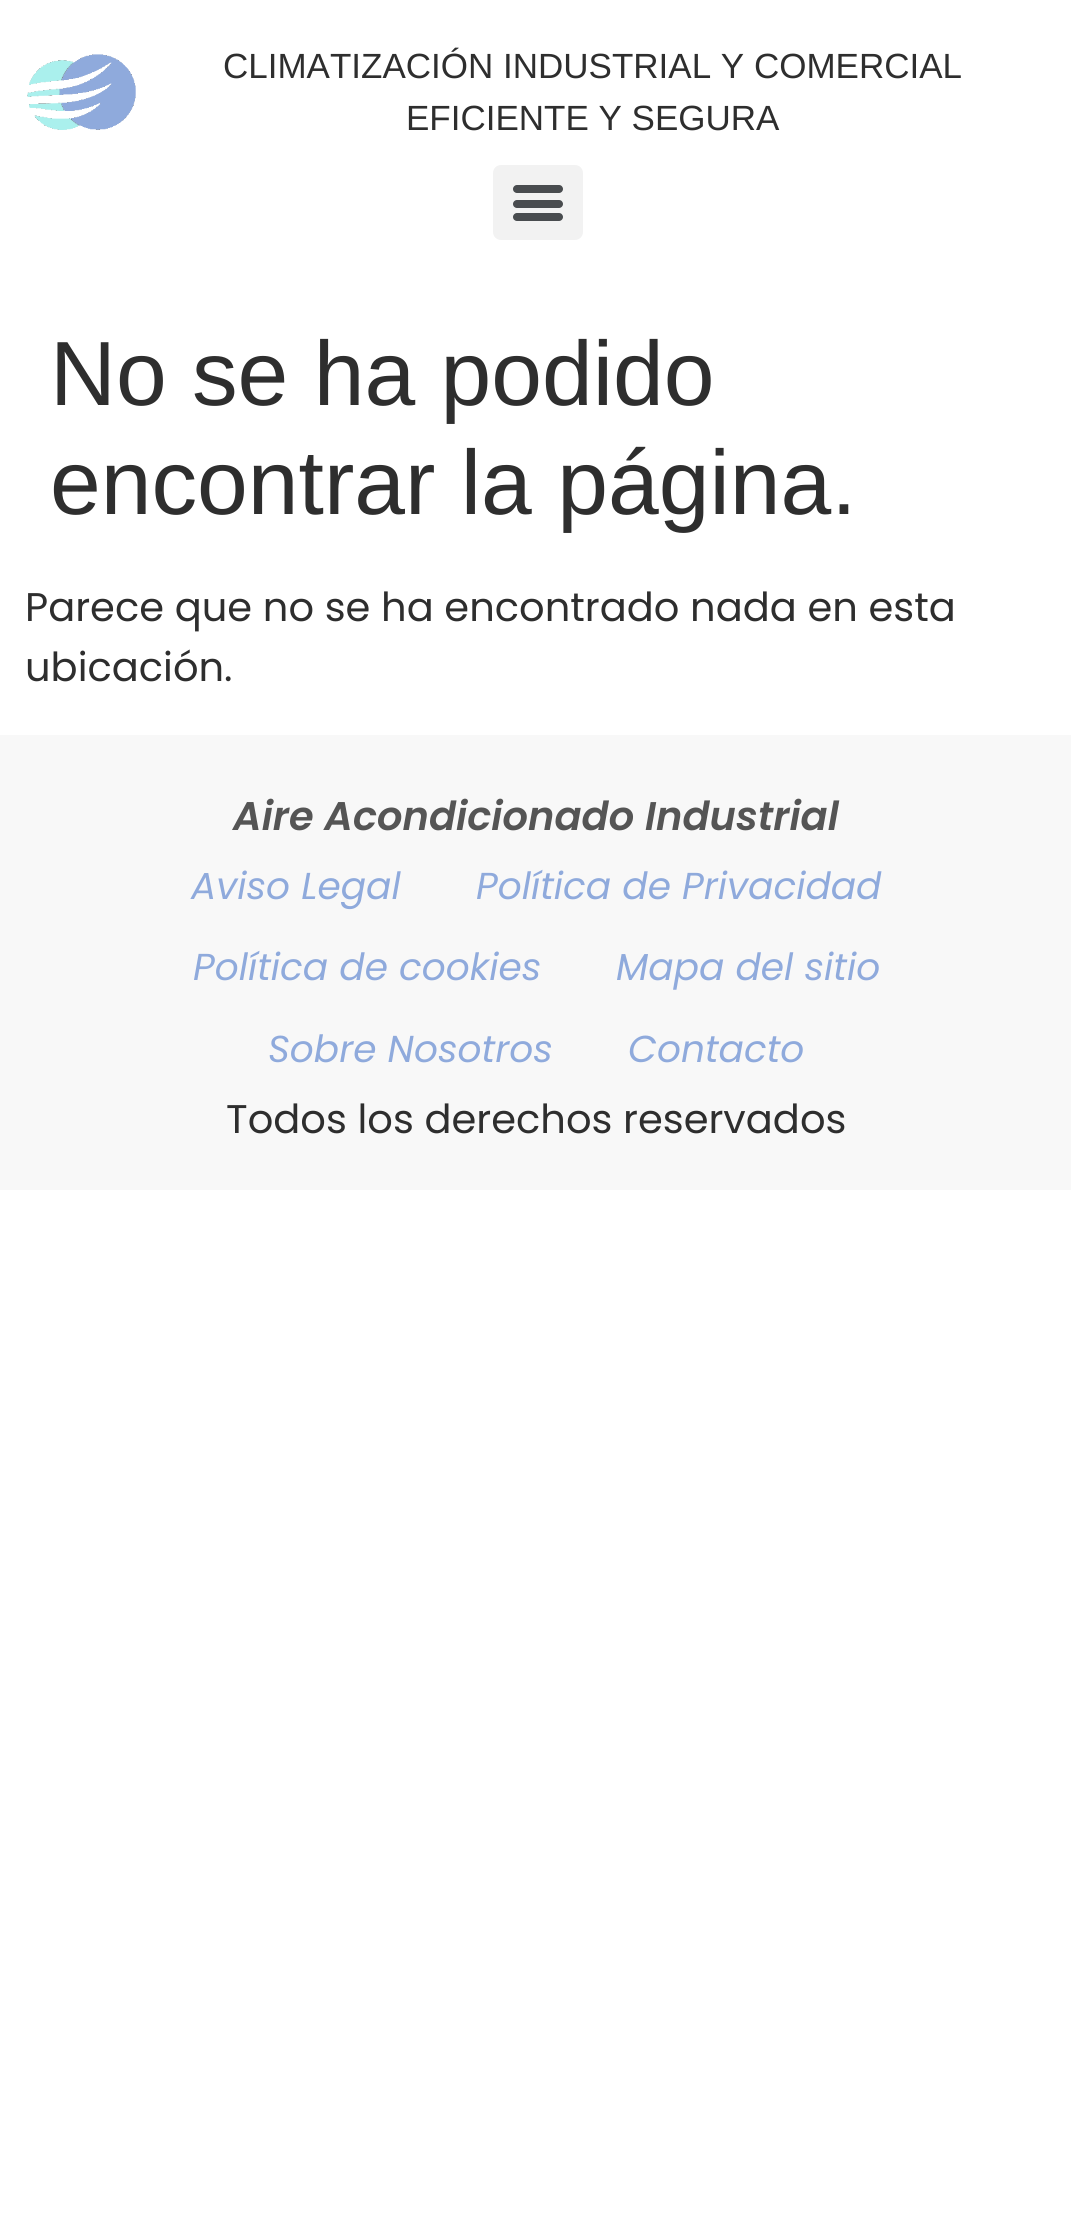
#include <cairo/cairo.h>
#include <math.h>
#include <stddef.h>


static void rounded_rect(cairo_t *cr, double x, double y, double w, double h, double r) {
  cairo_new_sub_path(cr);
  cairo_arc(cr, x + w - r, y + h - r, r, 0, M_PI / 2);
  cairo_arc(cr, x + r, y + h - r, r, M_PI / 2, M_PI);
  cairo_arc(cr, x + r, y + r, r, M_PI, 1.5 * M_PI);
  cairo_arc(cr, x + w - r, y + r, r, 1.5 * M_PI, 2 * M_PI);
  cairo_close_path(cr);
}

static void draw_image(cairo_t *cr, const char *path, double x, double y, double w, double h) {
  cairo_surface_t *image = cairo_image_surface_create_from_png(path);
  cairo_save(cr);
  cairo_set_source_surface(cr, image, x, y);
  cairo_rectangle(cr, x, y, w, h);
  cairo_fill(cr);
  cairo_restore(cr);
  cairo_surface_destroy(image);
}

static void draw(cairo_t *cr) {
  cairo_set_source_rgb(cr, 1, 1, 1);
  cairo_paint(cr);
  draw_image(cr, "images/1.png", 27, 54, 109, 76);
  cairo_set_source_rgb(cr, 242 / 255.0, 242 / 255.0, 242 / 255.0);
  rounded_rect(cr, 493, 165, 90, 75, 8);
  cairo_fill(cr);
  cairo_set_source_rgb(cr, 73 / 255.0, 76 / 255.0, 79 / 255.0);
  rounded_rect(cr, 513, 200, 50, 8, 4);
  cairo_fill(cr);
  rounded_rect(cr, 513, 185, 50, 8, 4);
  cairo_fill(cr);
  rounded_rect(cr, 513, 213, 50, 8, 4);
  cairo_fill(cr);
  cairo_set_source_rgb(cr, 248 / 255.0, 248 / 255.0, 248 / 255.0);
  cairo_rectangle(cr, 0, 735, 1071, 455);
  cairo_fill(cr);
  cairo_select_font_face(cr, "Liberation Sans", CAIRO_FONT_SLANT_NORMAL, CAIRO_FONT_WEIGHT_NORMAL);
  cairo_set_font_size(cr, 35);
  cairo_set_source_rgb(cr, 46 / 255.0, 46 / 255.0, 46 / 255.0);
  cairo_move_to(cr, 223, 78);
  cairo_show_text(cr, "CLIMATIZACIÓN INDUSTRIAL Y COMERCIAL");
  cairo_move_to(cr, 406, 130);
  cairo_show_text(cr, "EFICIENTE Y SEGURA");
  cairo_set_font_size(cr, 91.25);
  cairo_move_to(cr, 50, 405);
  cairo_show_text(cr, "No se ha podido");
  cairo_move_to(cr, 50, 514);
  cairo_show_text(cr, "encontrar la página.");
  cairo_select_font_face(cr, "Poppins", CAIRO_FONT_SLANT_NORMAL, CAIRO_FONT_WEIGHT_NORMAL);
  cairo_set_font_size(cr, 40);
  cairo_move_to(cr, 25, 621);
  cairo_show_text(cr, "Parece que no se ha encontrado nada en esta");
  cairo_move_to(cr, 25, 681);
  cairo_show_text(cr, "ubicación.");
  cairo_select_font_face(cr, "Poppins SemiBold", CAIRO_FONT_SLANT_ITALIC, CAIRO_FONT_WEIGHT_NORMAL);
  cairo_set_source_rgb(cr, 85 / 255.0, 85 / 255.0, 85 / 255.0);
  cairo_move_to(cr, 233, 830);
  cairo_show_text(cr, "Aire Acondicionado Industrial");
  cairo_select_font_face(cr, "Poppins", CAIRO_FONT_SLANT_ITALIC, CAIRO_FONT_WEIGHT_NORMAL);
  cairo_set_font_size(cr, 37.5);
  cairo_set_source_rgb(cr, 143 / 255.0, 170 / 255.0, 220 / 255.0);
  cairo_move_to(cr, 191, 899);
  cairo_show_text(cr, "Aviso Legal");
  cairo_move_to(cr, 476, 899);
  cairo_show_text(cr, "Política de Privacidad");
  cairo_move_to(cr, 193, 980);
  cairo_show_text(cr, "Política de cookies");
  cairo_move_to(cr, 616, 980);
  cairo_show_text(cr, "Mapa del sitio");
  cairo_move_to(cr, 268, 1062);
  cairo_show_text(cr, "Sobre Nosotros");
  cairo_move_to(cr, 628, 1062);
  cairo_show_text(cr, "Contacto");
  cairo_select_font_face(cr, "Poppins", CAIRO_FONT_SLANT_NORMAL, CAIRO_FONT_WEIGHT_NORMAL);
  cairo_set_font_size(cr, 40);
  cairo_set_source_rgb(cr, 46 / 255.0, 46 / 255.0, 46 / 255.0);
  cairo_move_to(cr, 226, 1133);
  cairo_show_text(cr, "Todos los derechos reservados");
}

int main(void) {
  cairo_surface_t *surface = cairo_image_surface_create(CAIRO_FORMAT_RGB24, 1071, 2219);
  cairo_t *cr = cairo_create(surface);
  cairo_font_options_t *options = cairo_font_options_create();
  cairo_font_options_set_hint_metrics(options, CAIRO_HINT_METRICS_OFF);
  cairo_font_options_set_hint_style(options, CAIRO_HINT_STYLE_NONE);
  cairo_set_font_options(cr, options);
  cairo_set_miter_limit(cr, 4);
  draw(cr);
  cairo_surface_write_to_png(surface, "out.png");
  cairo_font_options_destroy(options);
  cairo_destroy(cr);
  cairo_surface_destroy(surface);
  return 0;
}
